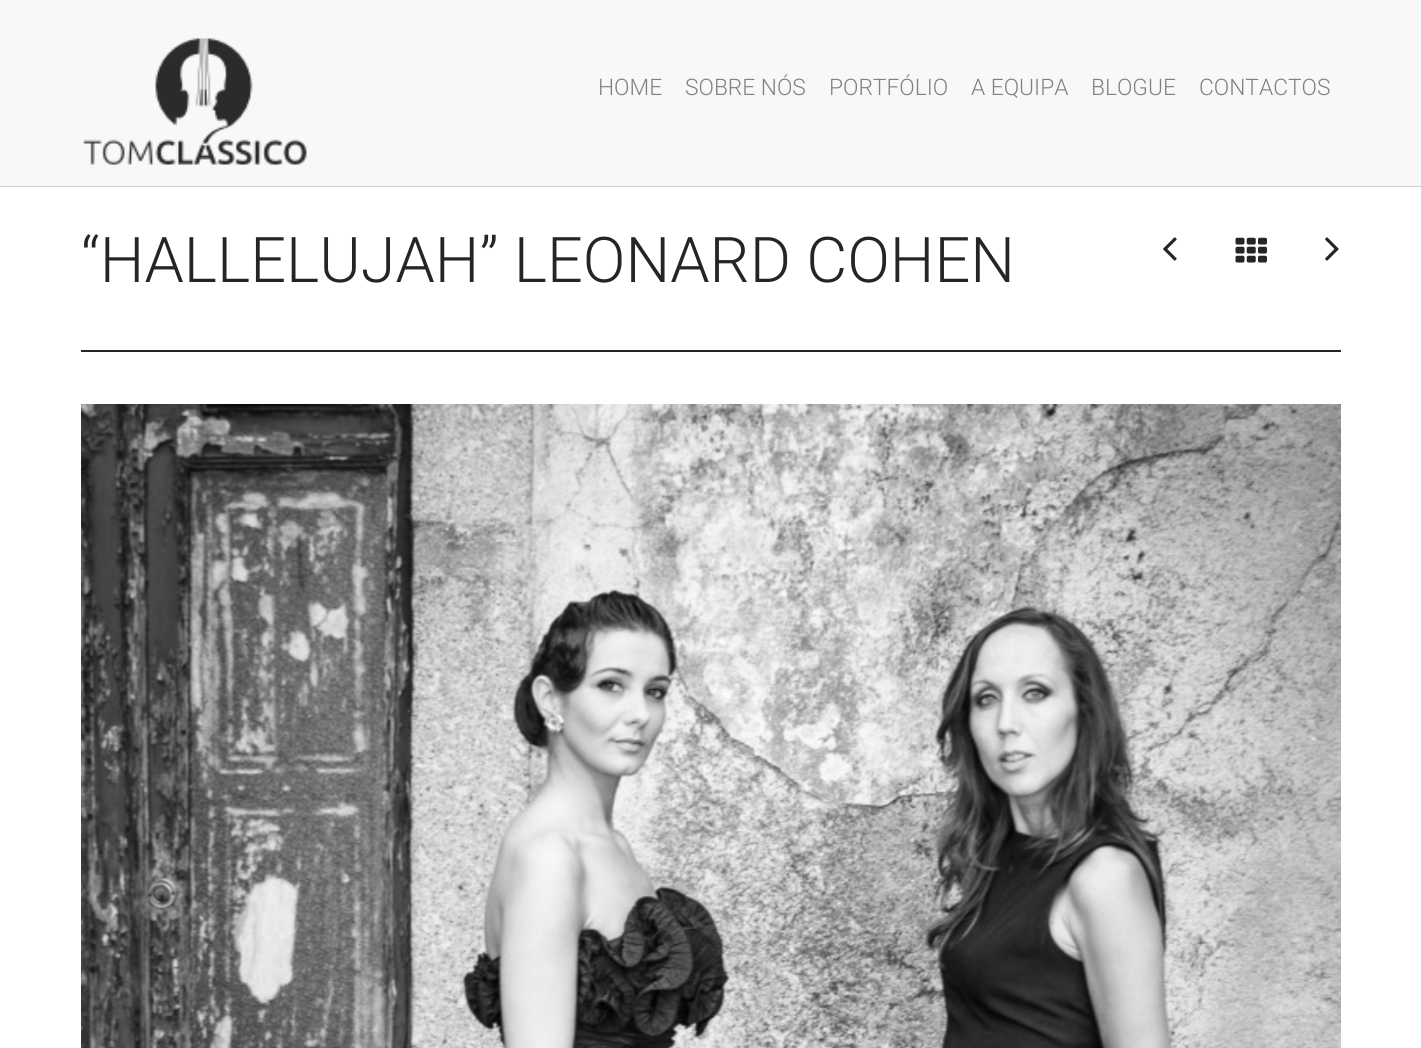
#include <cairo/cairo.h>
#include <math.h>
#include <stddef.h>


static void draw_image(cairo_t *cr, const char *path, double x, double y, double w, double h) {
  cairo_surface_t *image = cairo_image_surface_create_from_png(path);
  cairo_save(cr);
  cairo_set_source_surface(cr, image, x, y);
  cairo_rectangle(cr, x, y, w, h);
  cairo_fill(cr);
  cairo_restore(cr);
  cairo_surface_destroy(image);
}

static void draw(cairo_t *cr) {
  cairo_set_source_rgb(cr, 1, 1, 1);
  cairo_paint(cr);
  cairo_set_source_rgb(cr, 248 / 255.0, 248 / 255.0, 248 / 255.0);
  cairo_rectangle(cr, 0, 0, 1421, 186);
  cairo_fill(cr);
  cairo_set_source_rgb(cr, 209 / 255.0, 209 / 255.0, 209 / 255.0);
  cairo_rectangle(cr, 0, 186, 1421, 1);
  cairo_fill(cr);
  draw_image(cr, "images/1.png", 83, 38, 224, 127);
  cairo_set_source_rgb(cr, 37 / 255.0, 37 / 255.0, 37 / 255.0);
  cairo_rectangle(cr, 81, 350, 1260, 2);
  cairo_fill(cr);
  draw_image(cr, "images/2.png", 1163, 237, 14, 24);
  draw_image(cr, "images/3.png", 1235, 237, 32, 26);
  draw_image(cr, "images/4.png", 1325, 237, 14, 24);
  cairo_set_source_rgb(cr, 128 / 255.0, 128 / 255.0, 128 / 255.0);
  cairo_rectangle(cr, 81, 404, 1260, 5);
  cairo_fill(cr);
  draw_image(cr, "images/5.png", 81, 404, 1260, 644);
  cairo_select_font_face(cr, "Roboto Light", CAIRO_FONT_SLANT_NORMAL, CAIRO_FONT_WEIGHT_NORMAL);
  cairo_set_font_size(cr, 22.75);
  cairo_set_source_rgb(cr, 129 / 255.0, 129 / 255.0, 129 / 255.0);
  cairo_move_to(cr, 598, 95);
  cairo_show_text(cr, "HOME");
  cairo_move_to(cr, 685, 95);
  cairo_show_text(cr, "SOBRE NÓS");
  cairo_move_to(cr, 829, 95);
  cairo_show_text(cr, "PORTFÓLIO");
  cairo_move_to(cr, 971, 95);
  cairo_show_text(cr, "A EQUIPA");
  cairo_move_to(cr, 1091, 95);
  cairo_show_text(cr, "BLOGUE");
  cairo_move_to(cr, 1199, 95);
  cairo_show_text(cr, "CONTACTOS");
  cairo_set_font_size(cr, 63);
  cairo_set_source_rgb(cr, 37 / 255.0, 37 / 255.0, 37 / 255.0);
  cairo_move_to(cr, 81, 282);
  cairo_show_text(cr, "“HALLELUJAH” LEONARD COHEN");
}

int main(void) {
  cairo_surface_t *surface = cairo_image_surface_create(CAIRO_FORMAT_RGB24, 1421, 1048);
  cairo_t *cr = cairo_create(surface);
  cairo_font_options_t *options = cairo_font_options_create();
  cairo_font_options_set_hint_metrics(options, CAIRO_HINT_METRICS_OFF);
  cairo_font_options_set_hint_style(options, CAIRO_HINT_STYLE_NONE);
  cairo_set_font_options(cr, options);
  cairo_set_miter_limit(cr, 4);
  draw(cr);
  cairo_surface_write_to_png(surface, "out.png");
  cairo_font_options_destroy(options);
  cairo_destroy(cr);
  cairo_surface_destroy(surface);
  return 0;
}
